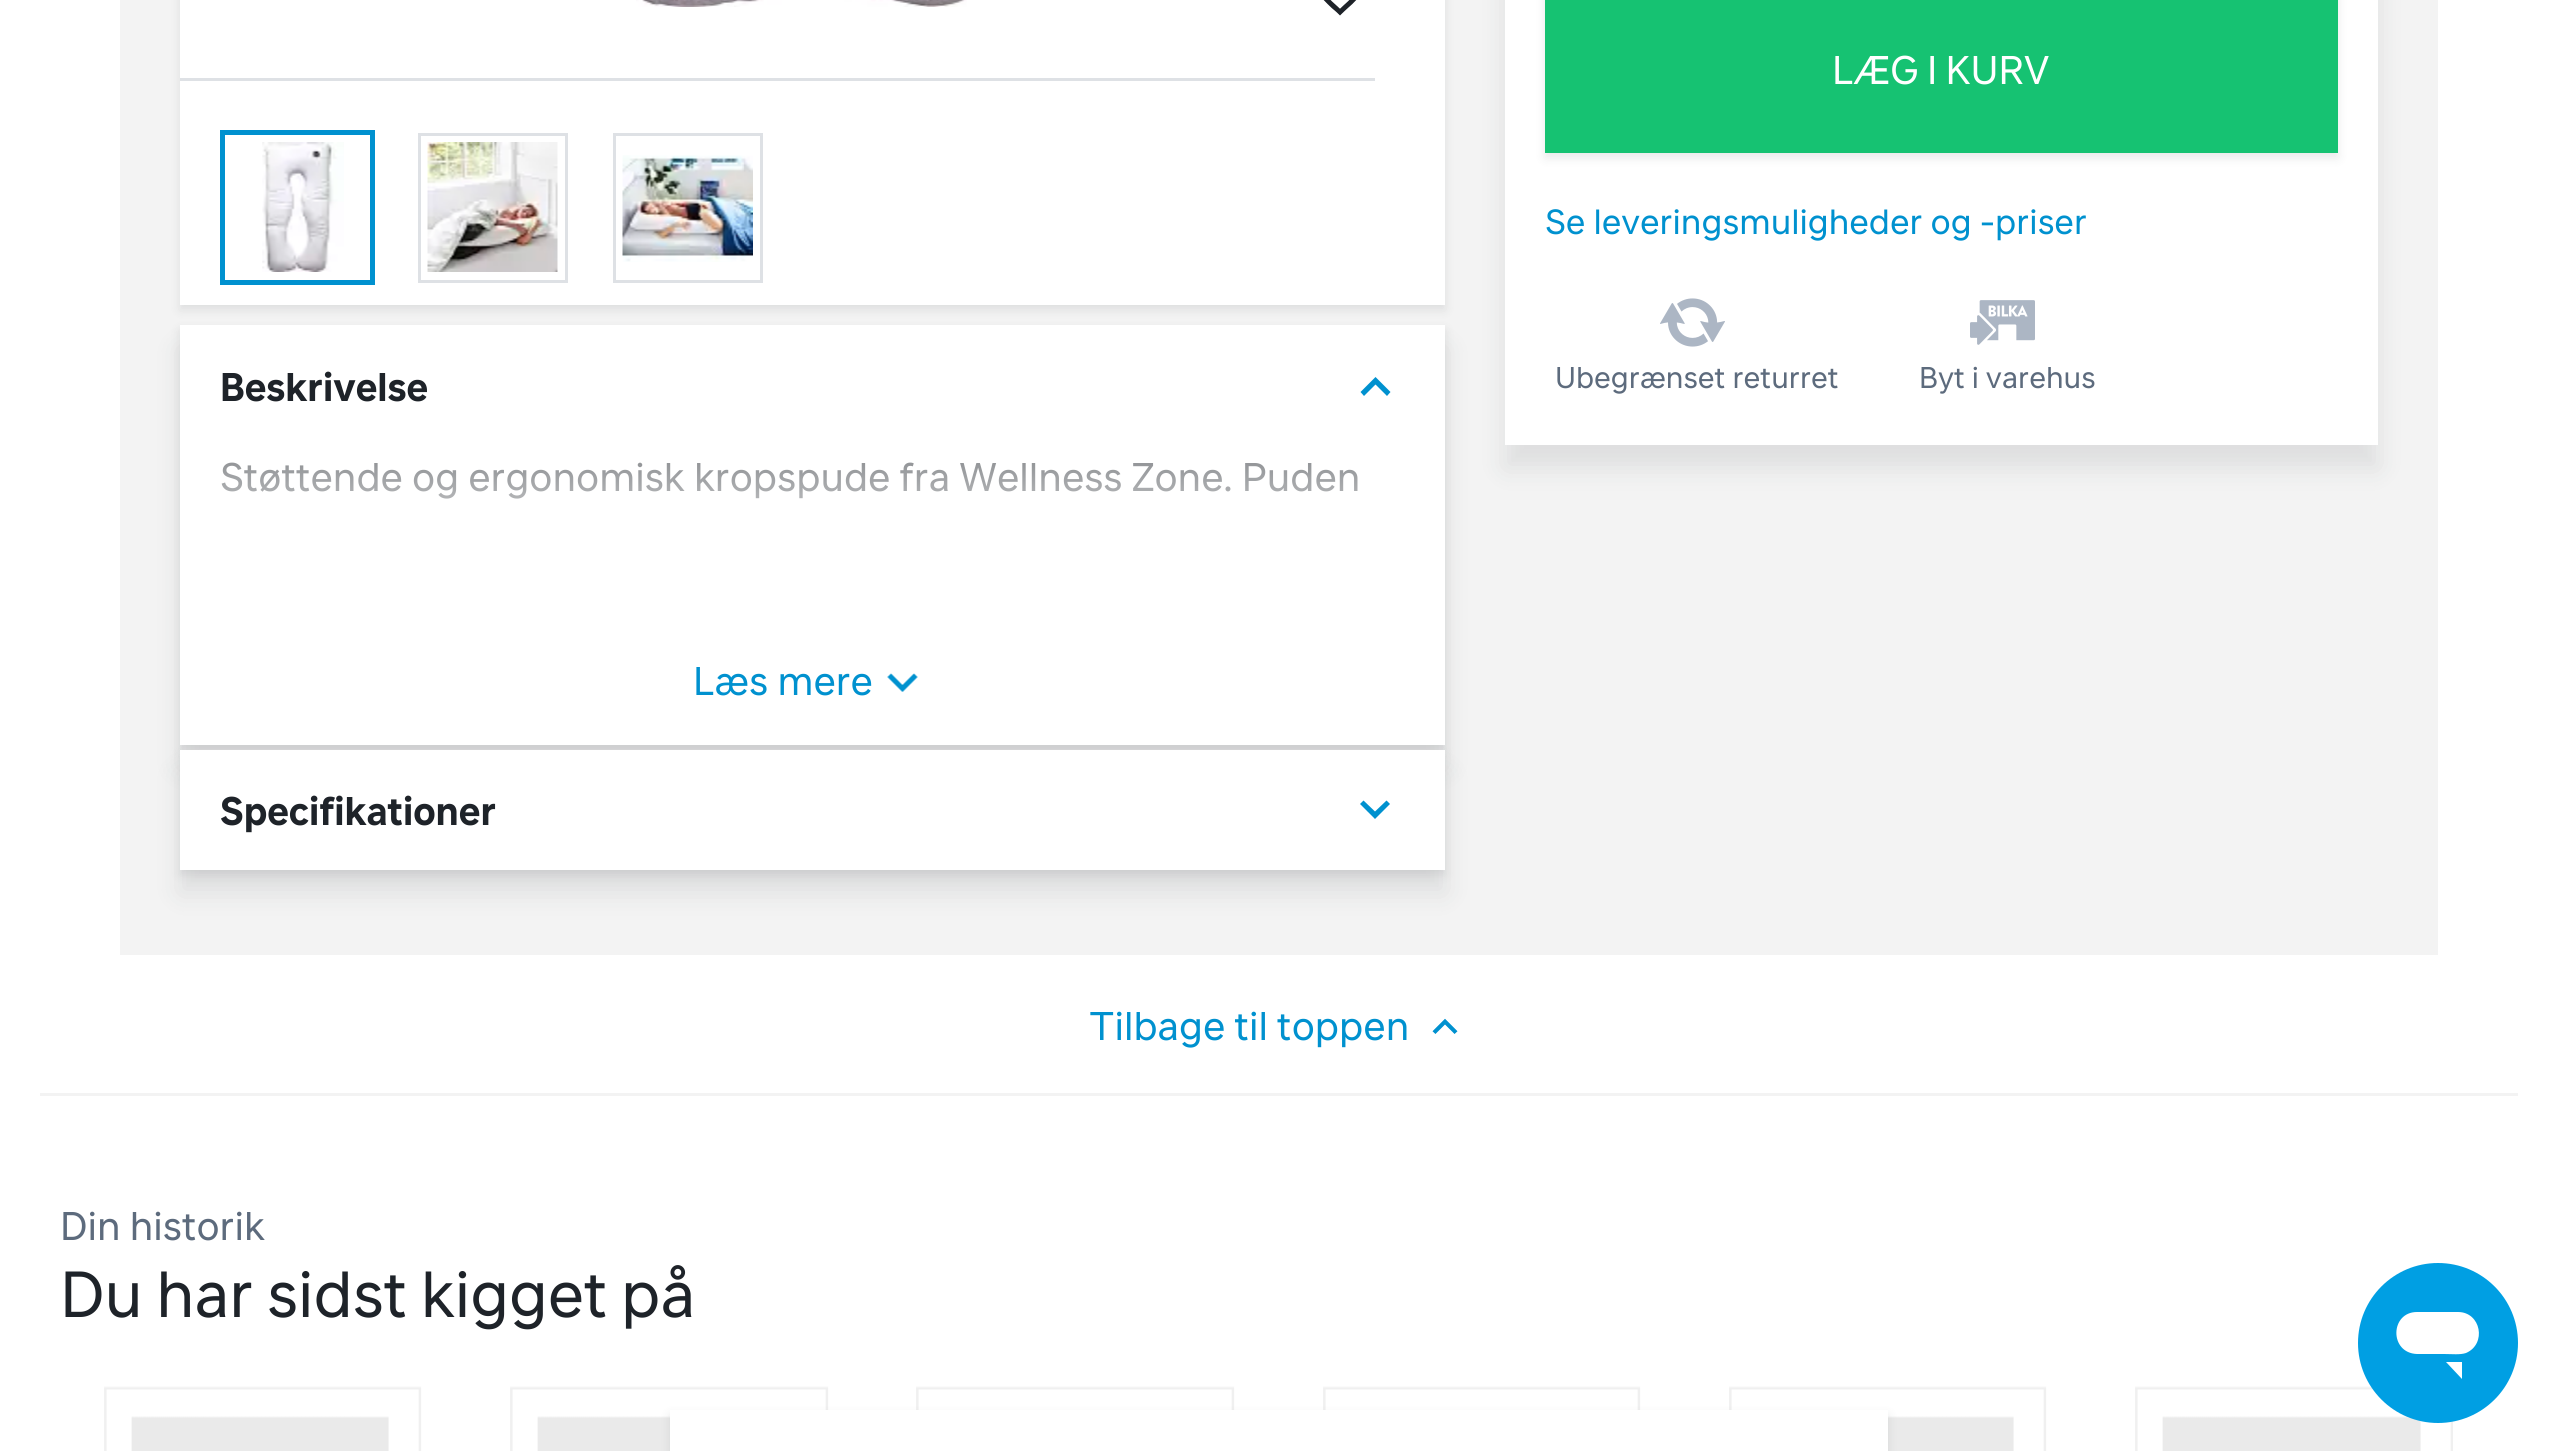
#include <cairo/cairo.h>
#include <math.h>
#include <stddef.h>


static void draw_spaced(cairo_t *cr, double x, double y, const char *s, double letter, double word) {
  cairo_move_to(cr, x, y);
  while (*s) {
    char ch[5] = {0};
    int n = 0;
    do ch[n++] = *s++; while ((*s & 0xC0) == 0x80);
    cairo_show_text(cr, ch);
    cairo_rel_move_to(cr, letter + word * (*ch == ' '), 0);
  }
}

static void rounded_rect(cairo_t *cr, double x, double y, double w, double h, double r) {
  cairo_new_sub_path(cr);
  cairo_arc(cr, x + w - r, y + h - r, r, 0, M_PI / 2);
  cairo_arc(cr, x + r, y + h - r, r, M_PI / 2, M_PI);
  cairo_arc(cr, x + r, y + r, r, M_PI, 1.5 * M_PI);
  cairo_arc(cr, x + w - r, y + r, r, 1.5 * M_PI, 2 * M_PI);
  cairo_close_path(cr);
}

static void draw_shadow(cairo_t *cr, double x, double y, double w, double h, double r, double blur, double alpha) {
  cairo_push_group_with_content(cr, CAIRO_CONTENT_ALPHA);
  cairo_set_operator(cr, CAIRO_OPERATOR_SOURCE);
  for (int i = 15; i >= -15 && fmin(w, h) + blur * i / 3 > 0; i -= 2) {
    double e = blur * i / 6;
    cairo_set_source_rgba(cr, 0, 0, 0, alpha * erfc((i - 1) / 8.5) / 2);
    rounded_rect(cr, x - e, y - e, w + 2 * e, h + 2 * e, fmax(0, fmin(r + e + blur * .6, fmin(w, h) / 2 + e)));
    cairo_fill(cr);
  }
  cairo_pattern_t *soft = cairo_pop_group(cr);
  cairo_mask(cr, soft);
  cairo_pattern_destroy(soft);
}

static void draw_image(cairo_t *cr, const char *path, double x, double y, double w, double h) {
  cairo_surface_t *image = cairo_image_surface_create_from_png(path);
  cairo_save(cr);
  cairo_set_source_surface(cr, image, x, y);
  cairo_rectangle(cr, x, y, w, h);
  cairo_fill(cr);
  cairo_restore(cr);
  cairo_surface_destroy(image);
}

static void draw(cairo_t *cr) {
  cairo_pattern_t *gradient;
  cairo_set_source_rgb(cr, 1, 1, 1);
  cairo_paint(cr);
  cairo_set_source_rgb(cr, 243 / 255.0, 243 / 255.0, 243 / 255.0);
  cairo_rectangle(cr, 120, 0, 2318, 955);
  cairo_fill(cr);
  cairo_set_source_rgb(cr, 30 / 255.0, 35 / 255.0, 41 / 255.0);
  draw_shadow(cr, 1505, -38, 873, 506, 0, 12.5, 0.1);
  cairo_set_source_rgb(cr, 1, 1, 1);
  cairo_rectangle(cr, 1505, 0, 873, 445);
  cairo_fill(cr);
  cairo_set_source_rgb(cr, 30 / 255.0, 35 / 255.0, 41 / 255.0);
  draw_shadow(cr, 1545, -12, 793, 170, 0, 5, 0.1);
  cairo_set_source_rgb(cr, 22 / 255.0, 194 / 255.0, 114 / 255.0);
  cairo_rectangle(cr, 1545, 0, 793, 153);
  cairo_fill(cr);
  draw_image(cr, "images/1.png", 1660, 298, 65, 49);
  draw_image(cr, "images/2.png", 1970, 300, 65, 45);
  cairo_set_source_rgb(cr, 30 / 255.0, 35 / 255.0, 41 / 255.0);
  draw_shadow(cr, 180, -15, 1265, 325, 0, 5, 0.1);
  cairo_set_source_rgb(cr, 1, 1, 1);
  cairo_rectangle(cr, 180, 0, 1265, 305);
  cairo_fill(cr);
  draw_image(cr, "images/3.png", 636, 0, 331, 7);
  draw_image(cr, "images/4.png", 1323, 0, 34, 16);
  cairo_set_source_rgb(cr, 222 / 255.0, 225 / 255.0, 229 / 255.0);
  cairo_rectangle(cr, 180, 78, 1195, 3);
  cairo_fill(cr);
  cairo_rectangle(cr, 222.5, 132.5, 150, 150);
  cairo_set_source_rgb(cr, 0, 145 / 255.0, 207 / 255.0);
  cairo_set_line_width(cr, 5);
  cairo_stroke(cr);
  draw_image(cr, "images/5.png", 262, 142, 82, 130);
  cairo_rectangle(cr, 419.5, 134.5, 147, 147);
  cairo_set_source_rgb(cr, 222 / 255.0, 225 / 255.0, 229 / 255.0);
  cairo_set_line_width(cr, 3);
  cairo_stroke(cr);
  draw_image(cr, "images/6.png", 427, 142, 131, 130);
  cairo_rectangle(cr, 614.5, 134.5, 147, 147);
  cairo_stroke(cr);
  draw_image(cr, "images/7.png", 622, 155, 131, 107);
  cairo_set_source_rgb(cr, 30 / 255.0, 35 / 255.0, 41 / 255.0);
  draw_shadow(cr, 180, 348, 1265, 420, 0, 12.5, 0.1);
  cairo_set_source_rgb(cr, 1, 1, 1);
  cairo_rectangle(cr, 180, 325, 1265, 420);
  cairo_fill(cr);
  cairo_save(cr);
  cairo_set_fill_rule(cr, CAIRO_FILL_RULE_EVEN_ODD);
  cairo_new_path(cr);
  cairo_move_to(cr, 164, 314);
  cairo_line_to(cr, 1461, 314);
  cairo_line_to(cr, 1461, 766);
  cairo_line_to(cr, 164, 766);
  cairo_close_path(cr);
  cairo_move_to(cr, 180, 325);
  cairo_line_to(cr, 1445, 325);
  cairo_line_to(cr, 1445, 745);
  cairo_line_to(cr, 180, 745);
  cairo_close_path(cr);
  cairo_clip(cr);
  cairo_set_source_rgb(cr, 30 / 255.0, 35 / 255.0, 41 / 255.0);
  draw_shadow(cr, 180, 330, 1265, 420, 0, 5, 0.1);
  cairo_restore(cr);
  cairo_set_source_rgb(cr, 0, 145 / 255.0, 207 / 255.0);
  cairo_new_path(cr);
  cairo_move_to(cr, 1387, 396);
  cairo_line_to(cr, 1375.5, 384.5);
  cairo_line_to(cr, 1364, 396);
  cairo_line_to(cr, 1360.5, 392);
  cairo_line_to(cr, 1375.5, 377);
  cairo_line_to(cr, 1390.5, 392);
  cairo_close_path(cr);
  cairo_fill(cr);
  draw_image(cr, "images/8.png", 887, 673, 31, 19);
  cairo_set_source_rgb(cr, 30 / 255.0, 35 / 255.0, 41 / 255.0);
  draw_shadow(cr, 180, 773, 1265, 120, 0, 12.5, 0.1);
  cairo_set_source_rgb(cr, 1, 1, 1);
  cairo_rectangle(cr, 180, 750, 1265, 120);
  cairo_fill(cr);
  cairo_save(cr);
  cairo_set_fill_rule(cr, CAIRO_FILL_RULE_EVEN_ODD);
  cairo_new_path(cr);
  cairo_move_to(cr, 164, 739);
  cairo_line_to(cr, 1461, 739);
  cairo_line_to(cr, 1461, 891);
  cairo_line_to(cr, 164, 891);
  cairo_close_path(cr);
  cairo_move_to(cr, 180, 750);
  cairo_line_to(cr, 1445, 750);
  cairo_line_to(cr, 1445, 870);
  cairo_line_to(cr, 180, 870);
  cairo_close_path(cr);
  cairo_clip(cr);
  cairo_set_source_rgb(cr, 30 / 255.0, 35 / 255.0, 41 / 255.0);
  draw_shadow(cr, 180, 755, 1265, 120, 0, 5, 0.1);
  cairo_restore(cr);
  cairo_set_source_rgb(cr, 0, 145 / 255.0, 207 / 255.0);
  cairo_new_path(cr);
  cairo_move_to(cr, 1363.5, 800.5);
  cairo_line_to(cr, 1375, 811.5);
  cairo_line_to(cr, 1386.5, 800.5);
  cairo_line_to(cr, 1390, 804);
  cairo_line_to(cr, 1375, 819);
  cairo_line_to(cr, 1360, 804);
  cairo_close_path(cr);
  cairo_fill(cr);
  cairo_set_source_rgb(cr, 243 / 255.0, 243 / 255.0, 243 / 255.0);
  cairo_rectangle(cr, 40, 1093, 2478, 3);
  cairo_fill(cr);
  draw_image(cr, "images/9.png", 1432, 1018, 26, 16);
  draw_image(cr, "images/10.png", 104, 1386, 2349, 65);
  cairo_set_source_rgb(cr, 30 / 255.0, 35 / 255.0, 41 / 255.0);
  draw_shadow(cr, 670, 1415, 1218, 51, 0, 5, 0.1);
  cairo_set_source_rgb(cr, 1, 1, 1);
  cairo_rectangle(cr, 670, 1410, 1218, 41);
  cairo_fill(cr);
  cairo_set_source_rgb(cr, 0, 159 / 255.0, 227 / 255.0);
  cairo_arc(cr, 2438, 1343, 80, 0, 2 * M_PI);
  cairo_fill(cr);
  cairo_set_source_rgb(cr, 1, 1, 1);
  cairo_new_path(cr);
  cairo_move_to(cr, 2446, 1362);
  cairo_line_to(cr, 2462, 1379);
  cairo_line_to(cr, 2462, 1362);
  cairo_close_path(cr);
  cairo_move_to(cr, 2417, 1312);
  cairo_curve_to(cr, 2390, 1312, 2389, 1353, 2417, 1354);
  cairo_line_to(cr, 2444, 1354);
  cairo_curve_to(cr, 2452, 1354, 2460, 1355, 2466, 1353);
  cairo_curve_to(cr, 2487, 1344, 2481, 1312, 2458, 1312);
  cairo_close_path(cr);
  cairo_fill(cr);
  cairo_select_font_face(cr, "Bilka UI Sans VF", CAIRO_FONT_SLANT_NORMAL, CAIRO_FONT_WEIGHT_NORMAL);
  cairo_set_font_size(cr, 40);
  draw_spaced(cr, 1832, 84, "LÆG I KURV", 0, -1);
  cairo_set_font_size(cr, 35);
  cairo_set_source_rgb(cr, 0, 145 / 255.0, 207 / 255.0);
  cairo_move_to(cr, 1545, 234);
  cairo_show_text(cr, "Se leveringsmuligheder og -priser");
  cairo_set_font_size(cr, 30);
  cairo_set_source_rgb(cr, 93 / 255.0, 107 / 255.0, 125 / 255.0);
  cairo_move_to(cr, 1555, 388);
  cairo_show_text(cr, "Ubegrænset returret");
  cairo_move_to(cr, 1919, 388);
  cairo_show_text(cr, "Byt i varehus");
  cairo_select_font_face(cr, "Bilka UI Sans VF", CAIRO_FONT_SLANT_NORMAL, CAIRO_FONT_WEIGHT_BOLD);
  cairo_set_font_size(cr, 40);
  cairo_set_source_rgb(cr, 30 / 255.0, 35 / 255.0, 41 / 255.0);
  cairo_move_to(cr, 220, 401);
  cairo_show_text(cr, "Beskrivelse");
  cairo_select_font_face(cr, "Bilka UI Sans VF", CAIRO_FONT_SLANT_NORMAL, CAIRO_FONT_WEIGHT_NORMAL);
  cairo_move_to(cr, 220, 491);
  cairo_show_text(cr, "Støttende og ergonomisk kropspude fra Wellness Zone. Puden");
  gradient = cairo_pattern_create_linear(813, 640, 813, 320);
  cairo_pattern_add_color_stop_rgba(gradient, 0.15, 1, 1, 1, 1);
  cairo_pattern_add_color_stop_rgba(gradient, 1, 1, 1, 1, 0);
  cairo_set_source(cr, gradient);
  cairo_pattern_destroy(gradient);
  cairo_rectangle(cr, 221, 462, 1137, 37);
  cairo_fill(cr);
  cairo_set_source_rgb(cr, 0, 145 / 255.0, 207 / 255.0);
  cairo_move_to(cr, 693, 695);
  cairo_show_text(cr, "Læs mere");
  cairo_select_font_face(cr, "Bilka UI Sans VF", CAIRO_FONT_SLANT_NORMAL, CAIRO_FONT_WEIGHT_BOLD);
  cairo_set_source_rgb(cr, 30 / 255.0, 35 / 255.0, 41 / 255.0);
  cairo_move_to(cr, 220, 825);
  cairo_show_text(cr, "Specifikationer");
  cairo_select_font_face(cr, "Bilka UI Sans VF", CAIRO_FONT_SLANT_NORMAL, CAIRO_FONT_WEIGHT_NORMAL);
  cairo_set_source_rgb(cr, 0, 145 / 255.0, 207 / 255.0);
  cairo_move_to(cr, 1089, 1040);
  cairo_show_text(cr, "Tilbage til toppen");
  cairo_set_source_rgb(cr, 93 / 255.0, 107 / 255.0, 125 / 255.0);
  cairo_move_to(cr, 60, 1240);
  cairo_show_text(cr, "Din historik");
  cairo_set_font_size(cr, 65);
  cairo_set_source_rgb(cr, 30 / 255.0, 35 / 255.0, 41 / 255.0);
  draw_spaced(cr, 60, 1317, "Du har sidst kigget på", 0, -1.5);
}

int main(void) {
  cairo_surface_t *surface = cairo_image_surface_create(CAIRO_FORMAT_RGB24, 2556, 1451);
  cairo_t *cr = cairo_create(surface);
  cairo_font_options_t *options = cairo_font_options_create();
  cairo_font_options_set_hint_metrics(options, CAIRO_HINT_METRICS_OFF);
  cairo_font_options_set_hint_style(options, CAIRO_HINT_STYLE_NONE);
  cairo_set_font_options(cr, options);
  cairo_set_miter_limit(cr, 4);
  draw(cr);
  cairo_surface_write_to_png(surface, "out.png");
  cairo_font_options_destroy(options);
  cairo_destroy(cr);
  cairo_surface_destroy(surface);
  return 0;
}
